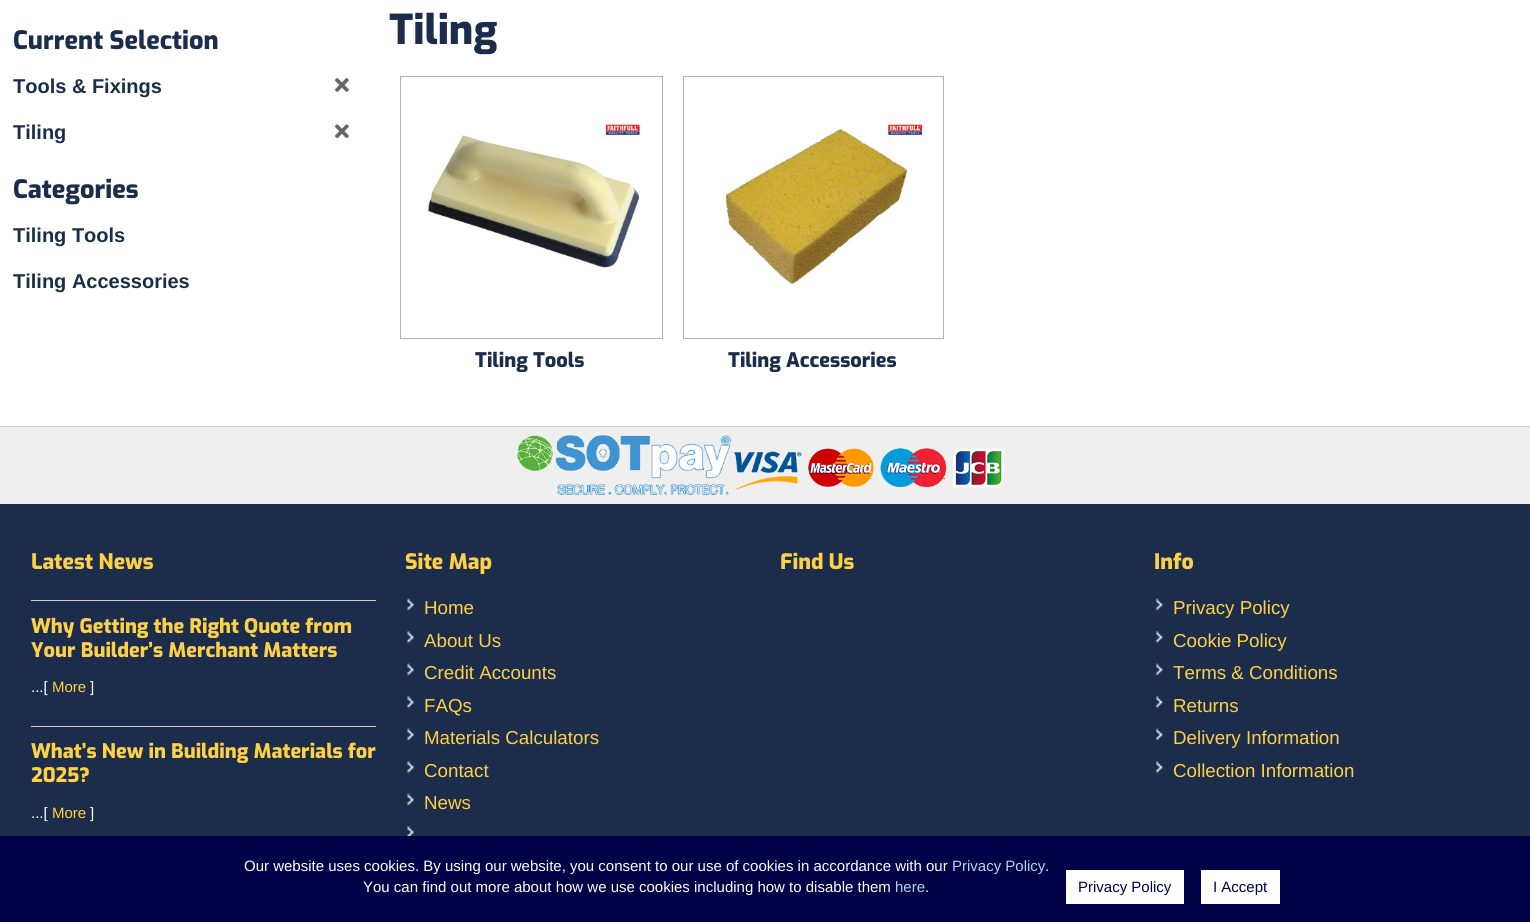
#include <cairo/cairo.h>
#include <math.h>
#include <stddef.h>


static void draw_image(cairo_t *cr, const char *path, double x, double y, double w, double h) {
  cairo_surface_t *image = cairo_image_surface_create_from_png(path);
  cairo_save(cr);
  cairo_set_source_surface(cr, image, x, y);
  cairo_rectangle(cr, x, y, w, h);
  cairo_fill(cr);
  cairo_restore(cr);
  cairo_surface_destroy(image);
}

static void draw(cairo_t *cr) {
  cairo_set_source_rgb(cr, 1, 1, 1);
  cairo_paint(cr);
  draw_image(cr, "images/1.png", 335, 78, 14, 14);
  draw_image(cr, "images/2.png", 335, 124, 14, 15);
  cairo_rectangle(cr, 400.5, 76.5, 262, 262);
  cairo_set_source_rgb(cr, 178 / 255.0, 178 / 255.0, 178 / 255.0);
  cairo_set_line_width(cr, 1);
  cairo_stroke(cr);
  draw_image(cr, "images/3.png", 427, 122, 217, 146);
  cairo_rectangle(cr, 683.5, 76.5, 260, 262);
  cairo_stroke(cr);
  draw_image(cr, "images/4.png", 724, 122, 202, 163);
  cairo_set_source_rgb(cr, 239 / 255.0, 239 / 255.0, 239 / 255.0);
  cairo_rectangle(cr, 0, 427, 1530, 77);
  cairo_fill(cr);
  cairo_set_source_rgb(cr, 204 / 255.0, 204 / 255.0, 204 / 255.0);
  cairo_rectangle(cr, 0, 426, 1530, 1);
  cairo_fill(cr);
  draw_image(cr, "images/5.png", 517, 435, 487, 60);
  cairo_set_source_rgb(cr, 27 / 255.0, 45 / 255.0, 74 / 255.0);
  cairo_rectangle(cr, 0, 504, 1530, 332);
  cairo_fill(cr);
  cairo_set_source_rgb(cr, 204 / 255.0, 204 / 255.0, 204 / 255.0);
  cairo_rectangle(cr, 31, 600, 345, 1);
  cairo_fill(cr);
  cairo_rectangle(cr, 31, 726, 345, 1);
  cairo_fill(cr);
  draw_image(cr, "images/6.png", 407, 598, 7, 13);
  draw_image(cr, "images/7.png", 407, 631, 7, 13);
  draw_image(cr, "images/6.png", 407, 663, 7, 13);
  draw_image(cr, "images/7.png", 407, 696, 7, 13);
  draw_image(cr, "images/6.png", 407, 728, 7, 13);
  draw_image(cr, "images/8.png", 407, 761, 7, 13);
  draw_image(cr, "images/6.png", 407, 793, 7, 13);
  draw_image(cr, "images/9.png", 407, 826, 7, 10);
  draw_image(cr, "images/10.png", 1156, 598, 7, 13);
  draw_image(cr, "images/11.png", 1156, 631, 7, 13);
  draw_image(cr, "images/10.png", 1156, 663, 7, 13);
  draw_image(cr, "images/11.png", 1156, 696, 7, 13);
  draw_image(cr, "images/10.png", 1156, 728, 7, 13);
  draw_image(cr, "images/12.png", 1156, 761, 7, 13);
  cairo_set_source_rgb(cr, 0, 0, 71 / 255.0);
  cairo_rectangle(cr, 0, 836, 1530, 86);
  cairo_fill(cr);
  cairo_set_source_rgb(cr, 1, 1, 1);
  cairo_rectangle(cr, 1066, 870, 118, 34);
  cairo_fill(cr);
  cairo_rectangle(cr, 1201, 870, 79, 34);
  cairo_fill(cr);
  cairo_select_font_face(cr, "Exo ExtraBold", CAIRO_FONT_SLANT_NORMAL, CAIRO_FONT_WEIGHT_NORMAL);
  cairo_set_font_size(cr, 25.25);
  cairo_set_source_rgb(cr, 27 / 255.0, 45 / 255.0, 74 / 255.0);
  cairo_move_to(cr, 13, 49);
  cairo_show_text(cr, "Current Selection");
  cairo_save(cr);
  cairo_rectangle(cr, 13, 6, 376, 319);
  cairo_clip(cr);
  cairo_select_font_face(cr, "Liberation Sans", CAIRO_FONT_SLANT_NORMAL, CAIRO_FONT_WEIGHT_BOLD);
  cairo_set_font_size(cr, 20);
  cairo_move_to(cr, 13, 93);
  cairo_show_text(cr, "Tools & Fixings");
  cairo_move_to(cr, 13, 139);
  cairo_show_text(cr, "Tiling");
  cairo_restore(cr);
  cairo_move_to(cr, 13, 198);
  cairo_show_text(cr, "Categories");
  cairo_save(cr);
  cairo_rectangle(cr, 13, 6, 376, 319);
  cairo_clip(cr);
  cairo_select_font_face(cr, "Liberation Sans", CAIRO_FONT_SLANT_NORMAL, CAIRO_FONT_WEIGHT_BOLD);
  cairo_set_font_size(cr, 20);
  cairo_move_to(cr, 13, 242);
  cairo_show_text(cr, "Tiling Tools");
  cairo_move_to(cr, 13, 288);
  cairo_show_text(cr, "Tiling Accessories");
  cairo_restore(cr);
  cairo_set_font_size(cr, 41);
  cairo_move_to(cr, 389, 44);
  cairo_show_text(cr, "Tiling");
  cairo_set_font_size(cr, 20);
  cairo_move_to(cr, 475, 367);
  cairo_show_text(cr, "Tiling Tools");
  cairo_move_to(cr, 728, 367);
  cairo_show_text(cr, "Tiling Accessories");
  cairo_set_font_size(cr, 21.25);
  cairo_set_source_rgb(cr, 253 / 255.0, 208 / 255.0, 70 / 255.0);
  cairo_move_to(cr, 31, 569);
  cairo_show_text(cr, "Latest News");
  cairo_set_font_size(cr, 20);
  cairo_move_to(cr, 31, 633);
  cairo_show_text(cr, "Why Getting the Right Quote from");
  cairo_move_to(cr, 31, 657);
  cairo_show_text(cr, "Your Builder’s Merchant Matters");
  cairo_select_font_face(cr, "Liberation Sans", CAIRO_FONT_SLANT_NORMAL, CAIRO_FONT_WEIGHT_NORMAL);
  cairo_set_font_size(cr, 15);
  cairo_set_source_rgb(cr, 1, 1, 1);
  cairo_move_to(cr, 31, 692);
  cairo_show_text(cr, "...[");
  cairo_set_source_rgb(cr, 253 / 255.0, 208 / 255.0, 70 / 255.0);
  cairo_move_to(cr, 52, 692);
  cairo_show_text(cr, "More");
  cairo_set_source_rgb(cr, 1, 1, 1);
  cairo_move_to(cr, 90, 692);
  cairo_show_text(cr, "]");
  cairo_select_font_face(cr, "Exo ExtraBold", CAIRO_FONT_SLANT_NORMAL, CAIRO_FONT_WEIGHT_NORMAL);
  cairo_set_font_size(cr, 20);
  cairo_set_source_rgb(cr, 253 / 255.0, 208 / 255.0, 70 / 255.0);
  cairo_move_to(cr, 31, 758);
  cairo_show_text(cr, "What’s New in Building Materials for");
  cairo_move_to(cr, 31, 782);
  cairo_show_text(cr, "2025?");
  cairo_select_font_face(cr, "Liberation Sans", CAIRO_FONT_SLANT_NORMAL, CAIRO_FONT_WEIGHT_NORMAL);
  cairo_set_font_size(cr, 15);
  cairo_set_source_rgb(cr, 1, 1, 1);
  cairo_move_to(cr, 31, 818);
  cairo_show_text(cr, "...[");
  cairo_set_source_rgb(cr, 253 / 255.0, 208 / 255.0, 70 / 255.0);
  cairo_move_to(cr, 52, 818);
  cairo_show_text(cr, "More");
  cairo_set_source_rgb(cr, 1, 1, 1);
  cairo_move_to(cr, 90, 818);
  cairo_show_text(cr, "]");
  cairo_select_font_face(cr, "Exo ExtraBold", CAIRO_FONT_SLANT_NORMAL, CAIRO_FONT_WEIGHT_NORMAL);
  cairo_set_font_size(cr, 21.25);
  cairo_set_source_rgb(cr, 253 / 255.0, 208 / 255.0, 70 / 255.0);
  cairo_move_to(cr, 405, 569);
  cairo_show_text(cr, "Site Map");
  cairo_select_font_face(cr, "Liberation Sans", CAIRO_FONT_SLANT_NORMAL, CAIRO_FONT_WEIGHT_NORMAL);
  cairo_set_font_size(cr, 18.75);
  cairo_move_to(cr, 424, 614);
  cairo_show_text(cr, "Home");
  cairo_move_to(cr, 424, 647);
  cairo_show_text(cr, "About Us");
  cairo_move_to(cr, 424, 679);
  cairo_show_text(cr, "Credit Accounts");
  cairo_move_to(cr, 424, 712);
  cairo_show_text(cr, "FAQs");
  cairo_move_to(cr, 424, 744);
  cairo_show_text(cr, "Materials Calculators");
  cairo_move_to(cr, 424, 777);
  cairo_show_text(cr, "Contact");
  cairo_move_to(cr, 424, 809);
  cairo_show_text(cr, "News");
  cairo_select_font_face(cr, "Exo ExtraBold", CAIRO_FONT_SLANT_NORMAL, CAIRO_FONT_WEIGHT_NORMAL);
  cairo_set_font_size(cr, 21.25);
  cairo_move_to(cr, 780, 569);
  cairo_show_text(cr, "Find Us");
  cairo_move_to(cr, 1154, 569);
  cairo_show_text(cr, "Info");
  cairo_select_font_face(cr, "Liberation Sans", CAIRO_FONT_SLANT_NORMAL, CAIRO_FONT_WEIGHT_NORMAL);
  cairo_set_font_size(cr, 18.75);
  cairo_move_to(cr, 1173, 614);
  cairo_show_text(cr, "Privacy Policy");
  cairo_move_to(cr, 1173, 647);
  cairo_show_text(cr, "Cookie Policy");
  cairo_move_to(cr, 1173, 679);
  cairo_show_text(cr, "Terms & Conditions");
  cairo_move_to(cr, 1173, 712);
  cairo_show_text(cr, "Returns");
  cairo_move_to(cr, 1173, 744);
  cairo_show_text(cr, "Delivery Information");
  cairo_move_to(cr, 1173, 777);
  cairo_show_text(cr, "Collection Information");
  cairo_set_font_size(cr, 15);
  cairo_set_source_rgb(cr, 1, 1, 1);
  cairo_move_to(cr, 244, 871);
  cairo_show_text(cr, "Our website uses cookies. By using our website, you consent to our use of cookies in accordance with our");
  cairo_set_source_rgb(cr, 173 / 255.0, 216 / 255.0, 230 / 255.0);
  cairo_move_to(cr, 952, 871);
  cairo_show_text(cr, "Privacy Policy");
  cairo_set_source_rgb(cr, 1, 1, 1);
  cairo_move_to(cr, 1045, 871);
  cairo_show_text(cr, ".");
  cairo_move_to(cr, 363, 892);
  cairo_show_text(cr, "You can find out more about how we use cookies including how to disable them");
  cairo_set_source_rgb(cr, 173 / 255.0, 216 / 255.0, 230 / 255.0);
  cairo_move_to(cr, 895, 892);
  cairo_show_text(cr, "here");
  cairo_set_source_rgb(cr, 1, 1, 1);
  cairo_move_to(cr, 925, 892);
  cairo_show_text(cr, ".");
  cairo_set_source_rgb(cr, 0, 0, 71 / 255.0);
  cairo_move_to(cr, 1078, 892);
  cairo_show_text(cr, "Privacy Policy");
  cairo_move_to(cr, 1213, 892);
  cairo_show_text(cr, "I Accept");
}

int main(void) {
  cairo_surface_t *surface = cairo_image_surface_create(CAIRO_FORMAT_RGB24, 1530, 922);
  cairo_t *cr = cairo_create(surface);
  cairo_font_options_t *options = cairo_font_options_create();
  cairo_font_options_set_hint_metrics(options, CAIRO_HINT_METRICS_OFF);
  cairo_font_options_set_hint_style(options, CAIRO_HINT_STYLE_NONE);
  cairo_set_font_options(cr, options);
  cairo_set_miter_limit(cr, 4);
  draw(cr);
  cairo_surface_write_to_png(surface, "out.png");
  cairo_font_options_destroy(options);
  cairo_destroy(cr);
  cairo_surface_destroy(surface);
  return 0;
}
